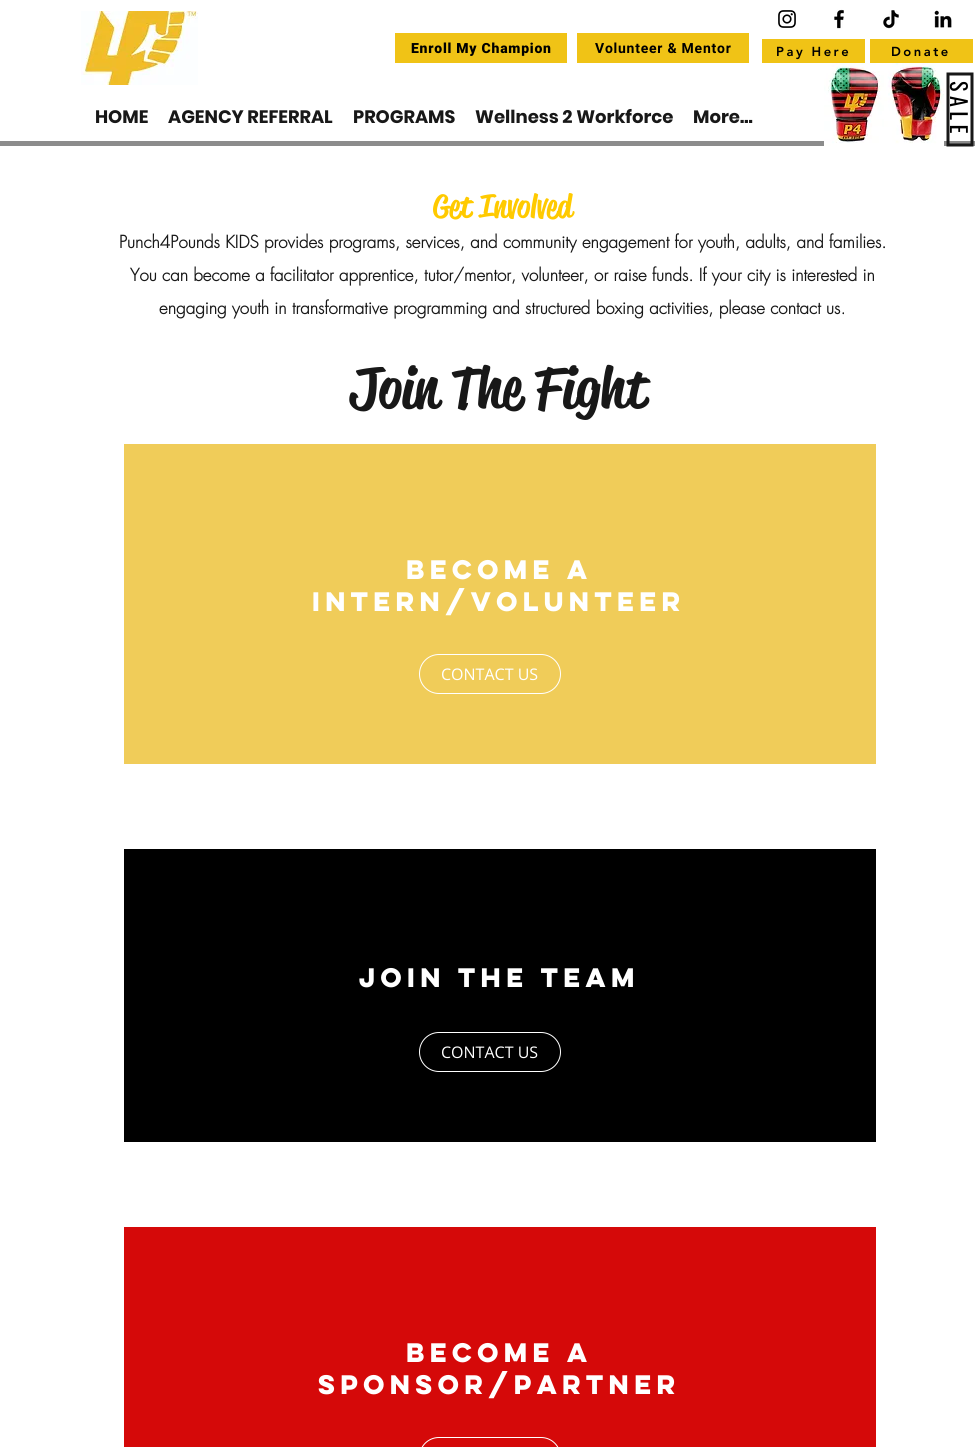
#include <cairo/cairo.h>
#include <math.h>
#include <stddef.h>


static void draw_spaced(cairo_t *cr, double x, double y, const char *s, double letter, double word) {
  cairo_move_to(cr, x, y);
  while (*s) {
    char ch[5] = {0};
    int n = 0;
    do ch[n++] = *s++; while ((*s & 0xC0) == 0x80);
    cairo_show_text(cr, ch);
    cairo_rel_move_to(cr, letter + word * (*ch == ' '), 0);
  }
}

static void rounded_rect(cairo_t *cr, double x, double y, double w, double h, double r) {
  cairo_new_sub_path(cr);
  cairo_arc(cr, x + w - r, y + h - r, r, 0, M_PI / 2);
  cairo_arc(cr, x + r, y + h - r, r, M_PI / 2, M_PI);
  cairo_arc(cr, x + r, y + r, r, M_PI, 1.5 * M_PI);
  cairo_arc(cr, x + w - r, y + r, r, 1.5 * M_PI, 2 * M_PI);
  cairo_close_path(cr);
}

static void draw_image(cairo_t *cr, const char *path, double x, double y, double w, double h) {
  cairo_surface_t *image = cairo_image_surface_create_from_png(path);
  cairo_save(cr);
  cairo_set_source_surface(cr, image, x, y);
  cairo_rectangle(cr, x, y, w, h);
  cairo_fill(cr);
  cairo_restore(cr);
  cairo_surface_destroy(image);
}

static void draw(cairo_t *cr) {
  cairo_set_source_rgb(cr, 1, 1, 1);
  cairo_paint(cr);
  draw_image(cr, "images/1.png", 81, 11, 117, 74);
  cairo_set_source_rgb(cr, 240 / 255.0, 195 / 255.0, 22 / 255.0);
  cairo_rectangle(cr, 395, 33, 172, 30);
  cairo_fill(cr);
  cairo_rectangle(cr, 577, 33, 172, 30);
  cairo_fill(cr);
  draw_image(cr, "images/2.png", 778, 10, 18, 18);
  draw_image(cr, "images/3.png", 834, 9, 10, 20);
  draw_image(cr, "images/4.png", 883, 10, 16, 19);
  draw_image(cr, "images/5.png", 934, 10, 18, 18);
  cairo_rectangle(cr, 762, 39, 103, 24);
  cairo_fill(cr);
  cairo_rectangle(cr, 870, 39, 103, 24);
  cairo_fill(cr);
  cairo_set_source_rgb(cr, 140 / 255.0, 140 / 255.0, 140 / 255.0);
  cairo_rectangle(cr, 0, 141, 975, 5);
  cairo_fill(cr);
  draw_image(cr, "images/6.png", 824, 63, 120, 83);
  cairo_new_path(cr);
  cairo_move_to(cr, 972, 74);
  cairo_line_to(cr, 972, 145);
  cairo_line_to(cr, 948, 145);
  cairo_line_to(cr, 948, 74);
  cairo_close_path(cr);
  cairo_set_source_rgb(cr, 24 / 255.0, 24 / 255.0, 24 / 255.0);
  cairo_set_line_width(cr, 3);
  cairo_stroke(cr);
  cairo_set_source_rgb(cr, 240 / 255.0, 204 / 255.0, 89 / 255.0);
  cairo_rectangle(cr, 124, 444, 752, 320);
  cairo_fill(cr);
  rounded_rect(cr, 419.5, 654.5, 141, 39, 19.5);
  cairo_set_source_rgb(cr, 1, 1, 1);
  cairo_set_line_width(cr, 1);
  cairo_stroke(cr);
  cairo_set_source_rgb(cr, 0, 0, 0);
  cairo_rectangle(cr, 124, 849, 752, 293);
  cairo_fill(cr);
  rounded_rect(cr, 419.5, 1032.5, 141, 39, 19.5);
  cairo_set_source_rgb(cr, 1, 1, 1);
  cairo_stroke(cr);
  cairo_set_source_rgb(cr, 213 / 255.0, 9 / 255.0, 9 / 255.0);
  cairo_rectangle(cr, 124, 1227, 752, 220);
  cairo_fill(cr);
  rounded_rect(cr, 419.5, 1437.5, 141, 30, 19.5);
  cairo_set_source_rgb(cr, 1, 1, 1);
  cairo_stroke(cr);
  cairo_select_font_face(cr, "Roboto Black", CAIRO_FONT_SLANT_NORMAL, CAIRO_FONT_WEIGHT_NORMAL);
  cairo_set_font_size(cr, 14);
  cairo_set_source_rgb(cr, 0, 0, 0);
  draw_spaced(cr, 411, 53, "Enroll My Champion", 0.75, 0);
  cairo_select_font_face(cr, "Roboto", CAIRO_FONT_SLANT_NORMAL, CAIRO_FONT_WEIGHT_BOLD);
  draw_spaced(cr, 595, 53, "Volunteer & Mentor", 0.75, 0);
  cairo_select_font_face(cr, "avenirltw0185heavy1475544 Black", CAIRO_FONT_SLANT_NORMAL, CAIRO_FONT_WEIGHT_NORMAL);
  cairo_set_font_size(cr, 13);
  draw_spaced(cr, 776, 56, "Pay Here", 2.5, 0);
  draw_spaced(cr, 891, 56, "Donate", 2.5, 0);
  cairo_select_font_face(cr, "Poppins", CAIRO_FONT_SLANT_NORMAL, CAIRO_FONT_WEIGHT_BOLD);
  cairo_set_font_size(cr, 18);
  cairo_set_source_rgb(cr, 24 / 255.0, 24 / 255.0, 24 / 255.0);
  cairo_move_to(cr, 95, 123);
  cairo_show_text(cr, "HOME");
  cairo_move_to(cr, 168, 123);
  cairo_show_text(cr, "AGENCY REFERRAL");
  cairo_move_to(cr, 353, 123);
  cairo_show_text(cr, "PROGRAMS");
  cairo_move_to(cr, 475, 123);
  cairo_show_text(cr, "Wellness 2 Workforce");
  cairo_move_to(cr, 693, 123);
  cairo_show_text(cr, "More...");
  cairo_select_font_face(cr, "Oswald", CAIRO_FONT_SLANT_NORMAL, CAIRO_FONT_WEIGHT_NORMAL);
  cairo_set_font_size(cr, 22);
  cairo_set_source_rgb(cr, 0, 0, 0);
  cairo_save(cr);
  cairo_translate(cr, 950, 81);
  cairo_rotate(cr, 90 * M_PI / 180);
  draw_spaced(cr, 0, 0, "SALE", 4.5, 0);
  cairo_restore(cr);
  cairo_select_font_face(cr, "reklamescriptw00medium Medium", CAIRO_FONT_SLANT_NORMAL, CAIRO_FONT_WEIGHT_NORMAL);
  cairo_set_font_size(cr, 32);
  cairo_set_source_rgb(cr, 1, 202 / 255.0, 0);
  cairo_move_to(cr, 433, 217);
  cairo_show_text(cr, "Get Involved");
  cairo_select_font_face(cr, "futura", CAIRO_FONT_SLANT_NORMAL, CAIRO_FONT_WEIGHT_BOLD);
  cairo_set_font_size(cr, 17);
  cairo_set_source_rgb(cr, 24 / 255.0, 24 / 255.0, 24 / 255.0);
  cairo_move_to(cr, 119, 248);
  cairo_show_text(cr, "Punch4Pounds KIDS provides programs, services, and community engagement for youth, adults, and families.");
  cairo_move_to(cr, 130, 281);
  cairo_show_text(cr, "You can become a facilitator apprentice, tutor/mentor, volunteer, or raise funds. If your city is interested in");
  cairo_move_to(cr, 159, 314);
  cairo_show_text(cr, "engaging youth in transformative programming and structured boxing activities, please contact us.");
  cairo_select_font_face(cr, "reklamescriptw00medium Medium", CAIRO_FONT_SLANT_NORMAL, CAIRO_FONT_WEIGHT_NORMAL);
  cairo_set_font_size(cr, 56);
  cairo_move_to(cr, 350, 407);
  cairo_show_text(cr, "Join The Fight");
  cairo_select_font_face(cr, "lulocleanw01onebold", CAIRO_FONT_SLANT_NORMAL, CAIRO_FONT_WEIGHT_BOLD);
  cairo_set_font_size(cr, 24);
  cairo_set_source_rgb(cr, 1, 1, 1);
  cairo_move_to(cr, 406, 579);
  cairo_show_text(cr, "become a");
  cairo_move_to(cr, 312, 611);
  cairo_show_text(cr, "intern/Volunteer");
  cairo_select_font_face(cr, "Open Sans", CAIRO_FONT_SLANT_NORMAL, CAIRO_FONT_WEIGHT_NORMAL);
  cairo_set_font_size(cr, 16);
  cairo_move_to(cr, 441, 680);
  cairo_show_text(cr, "CONTACT US");
  cairo_select_font_face(cr, "lulocleanw01onebold", CAIRO_FONT_SLANT_NORMAL, CAIRO_FONT_WEIGHT_BOLD);
  cairo_set_font_size(cr, 24);
  cairo_move_to(cr, 359, 987);
  cairo_show_text(cr, "Join The TeAM");
  cairo_select_font_face(cr, "Open Sans", CAIRO_FONT_SLANT_NORMAL, CAIRO_FONT_WEIGHT_NORMAL);
  cairo_set_font_size(cr, 16);
  cairo_move_to(cr, 441, 1058);
  cairo_show_text(cr, "CONTACT US");
  cairo_select_font_face(cr, "lulocleanw01onebold", CAIRO_FONT_SLANT_NORMAL, CAIRO_FONT_WEIGHT_BOLD);
  cairo_set_font_size(cr, 24);
  cairo_move_to(cr, 406, 1362);
  cairo_show_text(cr, "Become a");
  cairo_move_to(cr, 318, 1394);
  cairo_show_text(cr, "SPONSOR/partner");
}

int main(void) {
  cairo_surface_t *surface = cairo_image_surface_create(CAIRO_FORMAT_RGB24, 975, 1447);
  cairo_t *cr = cairo_create(surface);
  cairo_font_options_t *options = cairo_font_options_create();
  cairo_font_options_set_hint_metrics(options, CAIRO_HINT_METRICS_OFF);
  cairo_font_options_set_hint_style(options, CAIRO_HINT_STYLE_NONE);
  cairo_set_font_options(cr, options);
  cairo_set_miter_limit(cr, 4);
  draw(cr);
  cairo_surface_write_to_png(surface, "out.png");
  cairo_font_options_destroy(options);
  cairo_destroy(cr);
  cairo_surface_destroy(surface);
  return 0;
}
